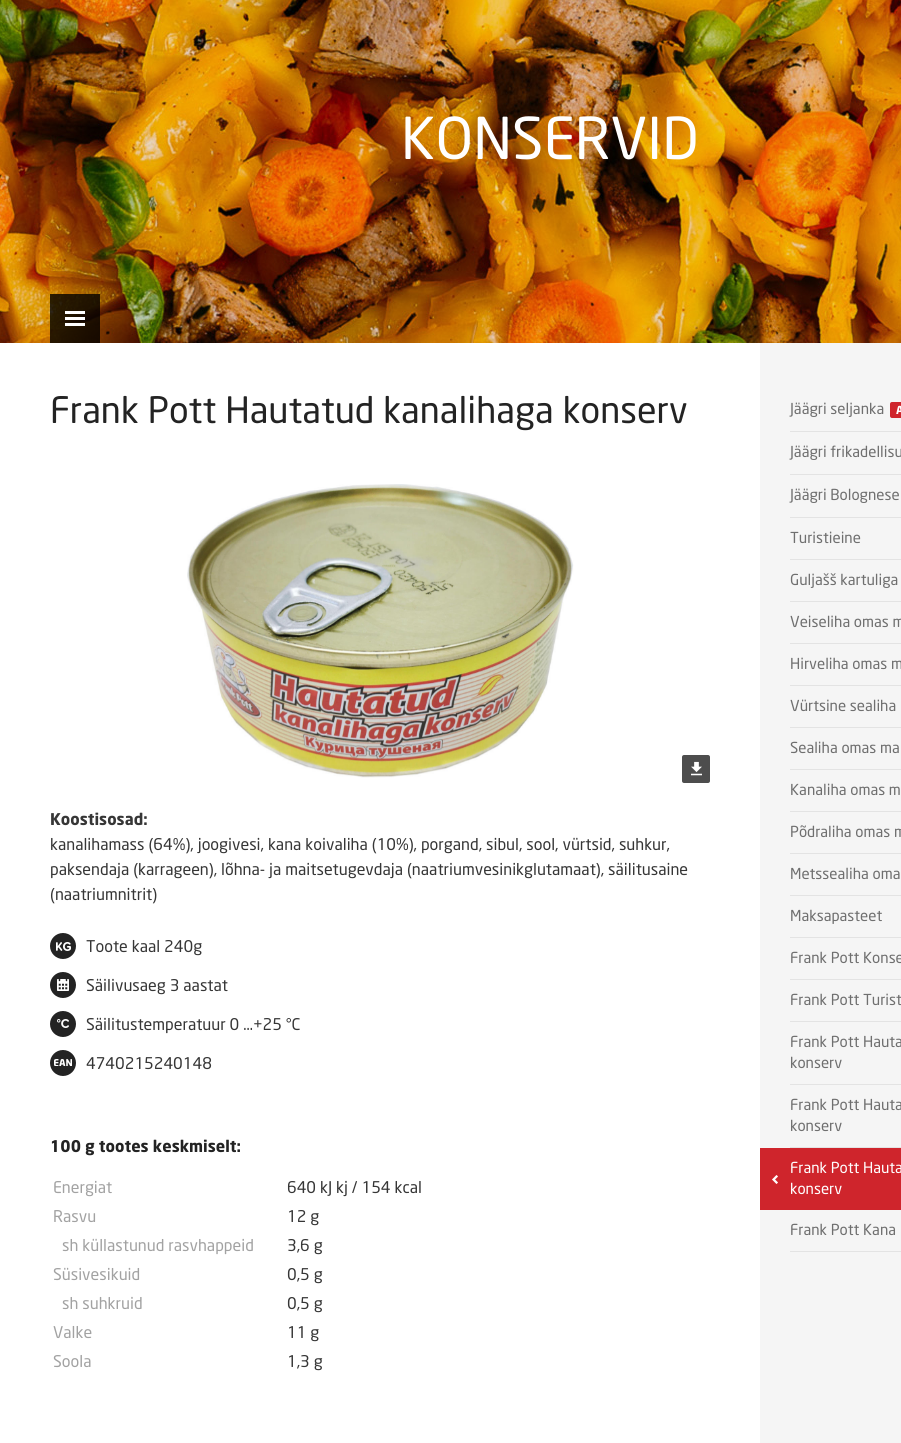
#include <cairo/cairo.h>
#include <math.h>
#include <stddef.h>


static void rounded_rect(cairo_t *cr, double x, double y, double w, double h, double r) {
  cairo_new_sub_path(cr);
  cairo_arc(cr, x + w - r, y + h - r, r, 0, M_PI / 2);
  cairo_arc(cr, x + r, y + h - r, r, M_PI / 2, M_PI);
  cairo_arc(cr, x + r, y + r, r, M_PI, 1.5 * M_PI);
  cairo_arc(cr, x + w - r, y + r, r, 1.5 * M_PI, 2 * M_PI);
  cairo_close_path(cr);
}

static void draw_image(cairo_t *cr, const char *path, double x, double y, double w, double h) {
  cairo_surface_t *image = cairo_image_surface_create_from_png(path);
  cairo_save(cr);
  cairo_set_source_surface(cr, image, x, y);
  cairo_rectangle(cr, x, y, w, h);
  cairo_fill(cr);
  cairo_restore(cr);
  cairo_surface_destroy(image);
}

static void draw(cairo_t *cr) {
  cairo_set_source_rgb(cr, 1, 1, 1);
  cairo_paint(cr);
  draw_image(cr, "images/1.png", 0, 0, 901, 343);
  cairo_set_source_rgba(cr, 0, 0, 0, 0.8);
  cairo_rectangle(cr, 50, 294, 50, 49);
  cairo_fill(cr);
  cairo_set_source_rgb(cr, 1, 1, 1);
  cairo_rectangle(cr, 65, 311, 20, 3);
  cairo_fill(cr);
  cairo_rectangle(cr, 65, 317, 20, 3);
  cairo_fill(cr);
  cairo_rectangle(cr, 65, 323, 20, 3);
  cairo_fill(cr);
  draw_image(cr, "images/2.png", 187, 484, 387, 294);
  cairo_set_source_rgb(cr, 77 / 255.0, 77 / 255.0, 77 / 255.0);
  rounded_rect(cr, 682, 755, 28, 28, 2);
  cairo_fill(cr);
  draw_image(cr, "images/3.png", 691, 761, 11, 15);
  cairo_set_source_rgb(cr, 35 / 255.0, 35 / 255.0, 35 / 255.0);
  cairo_arc(cr, 63, 946, 13, 0, 2 * M_PI);
  cairo_fill(cr);
  draw_image(cr, "images/4.png", 56, 942, 15, 9);
  cairo_arc(cr, 63, 985, 13, 0, 2 * M_PI);
  cairo_fill(cr);
  draw_image(cr, "images/5.png", 57, 979, 12, 12);
  cairo_arc(cr, 63, 1024, 13, 0, 2 * M_PI);
  cairo_fill(cr);
  draw_image(cr, "images/6.png", 57, 1019, 12, 9);
  cairo_arc(cr, 63, 1063, 13, 0, 2 * M_PI);
  cairo_fill(cr);
  draw_image(cr, "images/7.png", 54, 1059, 18, 7);
  cairo_set_source_rgb(cr, 245 / 255.0, 245 / 255.0, 245 / 255.0);
  cairo_rectangle(cr, 760, 343, 141, 1100);
  cairo_fill(cr);
  cairo_set_source_rgb(cr, 227 / 255.0, 227 / 255.0, 227 / 255.0);
  cairo_rectangle(cr, 790, 431, 111, 1);
  cairo_fill(cr);
  cairo_set_source_rgb(cr, 207 / 255.0, 37 / 255.0, 44 / 255.0);
  rounded_rect(cr, 890, 402, 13, 16, 2);
  cairo_fill(cr);
  cairo_set_source_rgb(cr, 227 / 255.0, 227 / 255.0, 227 / 255.0);
  cairo_rectangle(cr, 790, 474, 111, 1);
  cairo_fill(cr);
  cairo_rectangle(cr, 790, 517, 111, 1);
  cairo_fill(cr);
  cairo_rectangle(cr, 790, 559, 111, 1);
  cairo_fill(cr);
  cairo_rectangle(cr, 790, 601, 111, 1);
  cairo_fill(cr);
  cairo_rectangle(cr, 790, 643, 111, 1);
  cairo_fill(cr);
  cairo_rectangle(cr, 790, 685, 111, 1);
  cairo_fill(cr);
  cairo_rectangle(cr, 790, 727, 111, 1);
  cairo_fill(cr);
  cairo_rectangle(cr, 790, 769, 111, 1);
  cairo_fill(cr);
  cairo_rectangle(cr, 790, 811, 111, 1);
  cairo_fill(cr);
  cairo_rectangle(cr, 790, 853, 111, 1);
  cairo_fill(cr);
  cairo_rectangle(cr, 790, 895, 111, 1);
  cairo_fill(cr);
  cairo_rectangle(cr, 790, 937, 111, 1);
  cairo_fill(cr);
  cairo_rectangle(cr, 790, 979, 111, 1);
  cairo_fill(cr);
  cairo_rectangle(cr, 790, 1021, 111, 1);
  cairo_fill(cr);
  cairo_rectangle(cr, 790, 1084, 111, 1);
  cairo_fill(cr);
  cairo_rectangle(cr, 790, 1147, 111, 1);
  cairo_fill(cr);
  cairo_set_source_rgb(cr, 207 / 255.0, 37 / 255.0, 44 / 255.0);
  cairo_rectangle(cr, 760, 1148, 141, 62);
  cairo_fill(cr);
  draw_image(cr, "images/8.png", 772, 1175, 6, 9);
  cairo_set_source_rgb(cr, 227 / 255.0, 227 / 255.0, 227 / 255.0);
  cairo_rectangle(cr, 790, 1251, 111, 1);
  cairo_fill(cr);
  cairo_select_font_face(cr, "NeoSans", CAIRO_FONT_SLANT_NORMAL, CAIRO_FONT_WEIGHT_NORMAL);
  cairo_set_font_size(cr, 57);
  cairo_set_source_rgb(cr, 1, 1, 1);
  cairo_move_to(cr, 401, 159);
  cairo_show_text(cr, "KONSERVID");
  cairo_set_font_size(cr, 36);
  cairo_set_source_rgb(cr, 35 / 255.0, 35 / 255.0, 35 / 255.0);
  cairo_move_to(cr, 50, 423);
  cairo_show_text(cr, "Frank Pott Hautatud kanalihaga konserv");
  cairo_select_font_face(cr, "NeoSans", CAIRO_FONT_SLANT_NORMAL, CAIRO_FONT_WEIGHT_BOLD);
  cairo_set_font_size(cr, 16);
  cairo_set_source_rgb(cr, 54 / 255.0, 54 / 255.0, 54 / 255.0);
  cairo_move_to(cr, 50, 825);
  cairo_show_text(cr, "Koostisosad:");
  cairo_select_font_face(cr, "NeoSans", CAIRO_FONT_SLANT_NORMAL, CAIRO_FONT_WEIGHT_NORMAL);
  cairo_move_to(cr, 50, 850);
  cairo_show_text(cr, "kanalihamass (64%), joogivesi, kana koivaliha (10%), porgand, sibul, sool, vürtsid, suhkur,");
  cairo_move_to(cr, 50, 875);
  cairo_show_text(cr, "paksendaja (karrageen), lõhna- ja maitsetugevdaja (naatriumvesinikglutamaat), säilitusaine");
  cairo_move_to(cr, 50, 900);
  cairo_show_text(cr, "(naatriumnitrit)");
  cairo_move_to(cr, 86, 952);
  cairo_show_text(cr, "Toote kaal 240g");
  cairo_move_to(cr, 86, 991);
  cairo_show_text(cr, "Säilivusaeg 3 aastat");
  cairo_move_to(cr, 86, 1030);
  cairo_show_text(cr, "Säilitustemperatuur 0 …+25 °C");
  cairo_move_to(cr, 86, 1069);
  cairo_show_text(cr, "4740215240148");
  cairo_select_font_face(cr, "NeoSans", CAIRO_FONT_SLANT_NORMAL, CAIRO_FONT_WEIGHT_BOLD);
  cairo_set_source_rgb(cr, 35 / 255.0, 35 / 255.0, 35 / 255.0);
  cairo_move_to(cr, 50, 1152);
  cairo_show_text(cr, "100 g tootes keskmiselt:");
  cairo_select_font_face(cr, "NeoSans", CAIRO_FONT_SLANT_NORMAL, CAIRO_FONT_WEIGHT_NORMAL);
  cairo_set_source_rgb(cr, 162 / 255.0, 162 / 255.0, 162 / 255.0);
  cairo_move_to(cr, 53, 1193);
  cairo_show_text(cr, "Energiat");
  cairo_set_source_rgb(cr, 54 / 255.0, 54 / 255.0, 54 / 255.0);
  cairo_move_to(cr, 287, 1193);
  cairo_show_text(cr, "640 kJ kj / 154 kcal");
  cairo_set_source_rgb(cr, 162 / 255.0, 162 / 255.0, 162 / 255.0);
  cairo_move_to(cr, 53, 1222);
  cairo_show_text(cr, "Rasvu");
  cairo_set_source_rgb(cr, 54 / 255.0, 54 / 255.0, 54 / 255.0);
  cairo_move_to(cr, 287, 1222);
  cairo_show_text(cr, "12 g");
  cairo_set_source_rgb(cr, 162 / 255.0, 162 / 255.0, 162 / 255.0);
  cairo_move_to(cr, 62, 1251);
  cairo_show_text(cr, "sh küllastunud rasvhappeid");
  cairo_set_source_rgb(cr, 54 / 255.0, 54 / 255.0, 54 / 255.0);
  cairo_move_to(cr, 287, 1251);
  cairo_show_text(cr, "3,6 g");
  cairo_set_source_rgb(cr, 162 / 255.0, 162 / 255.0, 162 / 255.0);
  cairo_move_to(cr, 53, 1280);
  cairo_show_text(cr, "Süsivesikuid");
  cairo_set_source_rgb(cr, 54 / 255.0, 54 / 255.0, 54 / 255.0);
  cairo_move_to(cr, 287, 1280);
  cairo_show_text(cr, "0,5 g");
  cairo_set_source_rgb(cr, 162 / 255.0, 162 / 255.0, 162 / 255.0);
  cairo_move_to(cr, 62, 1309);
  cairo_show_text(cr, "sh suhkruid");
  cairo_set_source_rgb(cr, 54 / 255.0, 54 / 255.0, 54 / 255.0);
  cairo_move_to(cr, 287, 1309);
  cairo_show_text(cr, "0,5 g");
  cairo_set_source_rgb(cr, 162 / 255.0, 162 / 255.0, 162 / 255.0);
  cairo_move_to(cr, 53, 1338);
  cairo_show_text(cr, "Valke");
  cairo_set_source_rgb(cr, 54 / 255.0, 54 / 255.0, 54 / 255.0);
  cairo_move_to(cr, 287, 1338);
  cairo_show_text(cr, "11 g");
  cairo_set_source_rgb(cr, 162 / 255.0, 162 / 255.0, 162 / 255.0);
  cairo_move_to(cr, 53, 1367);
  cairo_show_text(cr, "Soola");
  cairo_set_source_rgb(cr, 54 / 255.0, 54 / 255.0, 54 / 255.0);
  cairo_move_to(cr, 287, 1367);
  cairo_show_text(cr, "1,3 g");
  cairo_set_font_size(cr, 15);
  cairo_set_source_rgb(cr, 111 / 255.0, 111 / 255.0, 111 / 255.0);
  cairo_move_to(cr, 790, 414);
  cairo_show_text(cr, "Jäägri seljanka");
  cairo_select_font_face(cr, "NeoSans", CAIRO_FONT_SLANT_NORMAL, CAIRO_FONT_WEIGHT_BOLD);
  cairo_set_font_size(cr, 11);
  cairo_set_source_rgb(cr, 1, 1, 1);
  cairo_move_to(cr, 896, 414);
  cairo_show_text(cr, "A");
  cairo_select_font_face(cr, "NeoSans", CAIRO_FONT_SLANT_NORMAL, CAIRO_FONT_WEIGHT_NORMAL);
  cairo_set_font_size(cr, 15);
  cairo_set_source_rgb(cr, 111 / 255.0, 111 / 255.0, 111 / 255.0);
  cairo_move_to(cr, 790, 457);
  cairo_show_text(cr, "Jäägri frikadellisu");
  cairo_move_to(cr, 790, 500);
  cairo_show_text(cr, "Jäägri Bolognese");
  cairo_move_to(cr, 790, 543);
  cairo_show_text(cr, "Turistieine");
  cairo_move_to(cr, 790, 585);
  cairo_show_text(cr, "Guljašš kartuliga");
  cairo_move_to(cr, 790, 627);
  cairo_show_text(cr, "Veiseliha omas m");
  cairo_move_to(cr, 790, 669);
  cairo_show_text(cr, "Hirveliha omas m");
  cairo_move_to(cr, 790, 711);
  cairo_show_text(cr, "Vürtsine sealiha");
  cairo_move_to(cr, 790, 753);
  cairo_show_text(cr, "Sealiha omas ma");
  cairo_move_to(cr, 790, 795);
  cairo_show_text(cr, "Kanaliha omas m");
  cairo_move_to(cr, 790, 837);
  cairo_show_text(cr, "Põdraliha omas m");
  cairo_move_to(cr, 790, 879);
  cairo_show_text(cr, "Metssealiha oma");
  cairo_move_to(cr, 790, 921);
  cairo_show_text(cr, "Maksapasteet");
  cairo_move_to(cr, 790, 963);
  cairo_show_text(cr, "Frank Pott Konse");
  cairo_move_to(cr, 790, 1005);
  cairo_show_text(cr, "Frank Pott Turist");
  cairo_move_to(cr, 790, 1047);
  cairo_show_text(cr, "Frank Pott Hauta");
  cairo_move_to(cr, 790, 1068);
  cairo_show_text(cr, "konserv");
  cairo_move_to(cr, 790, 1110);
  cairo_show_text(cr, "Frank Pott Hauta");
  cairo_move_to(cr, 790, 1131);
  cairo_show_text(cr, "konserv");
  cairo_set_source_rgb(cr, 1, 1, 1);
  cairo_move_to(cr, 790, 1173);
  cairo_show_text(cr, "Frank Pott Hauta");
  cairo_move_to(cr, 790, 1194);
  cairo_show_text(cr, "konserv");
  cairo_set_source_rgb(cr, 111 / 255.0, 111 / 255.0, 111 / 255.0);
  cairo_move_to(cr, 790, 1235);
  cairo_show_text(cr, "Frank Pott Kana");
}

int main(void) {
  cairo_surface_t *surface = cairo_image_surface_create(CAIRO_FORMAT_RGB24, 901, 1443);
  cairo_t *cr = cairo_create(surface);
  cairo_font_options_t *options = cairo_font_options_create();
  cairo_font_options_set_hint_metrics(options, CAIRO_HINT_METRICS_OFF);
  cairo_font_options_set_hint_style(options, CAIRO_HINT_STYLE_NONE);
  cairo_set_font_options(cr, options);
  cairo_set_miter_limit(cr, 4);
  draw(cr);
  cairo_surface_write_to_png(surface, "out.png");
  cairo_font_options_destroy(options);
  cairo_destroy(cr);
  cairo_surface_destroy(surface);
  return 0;
}
